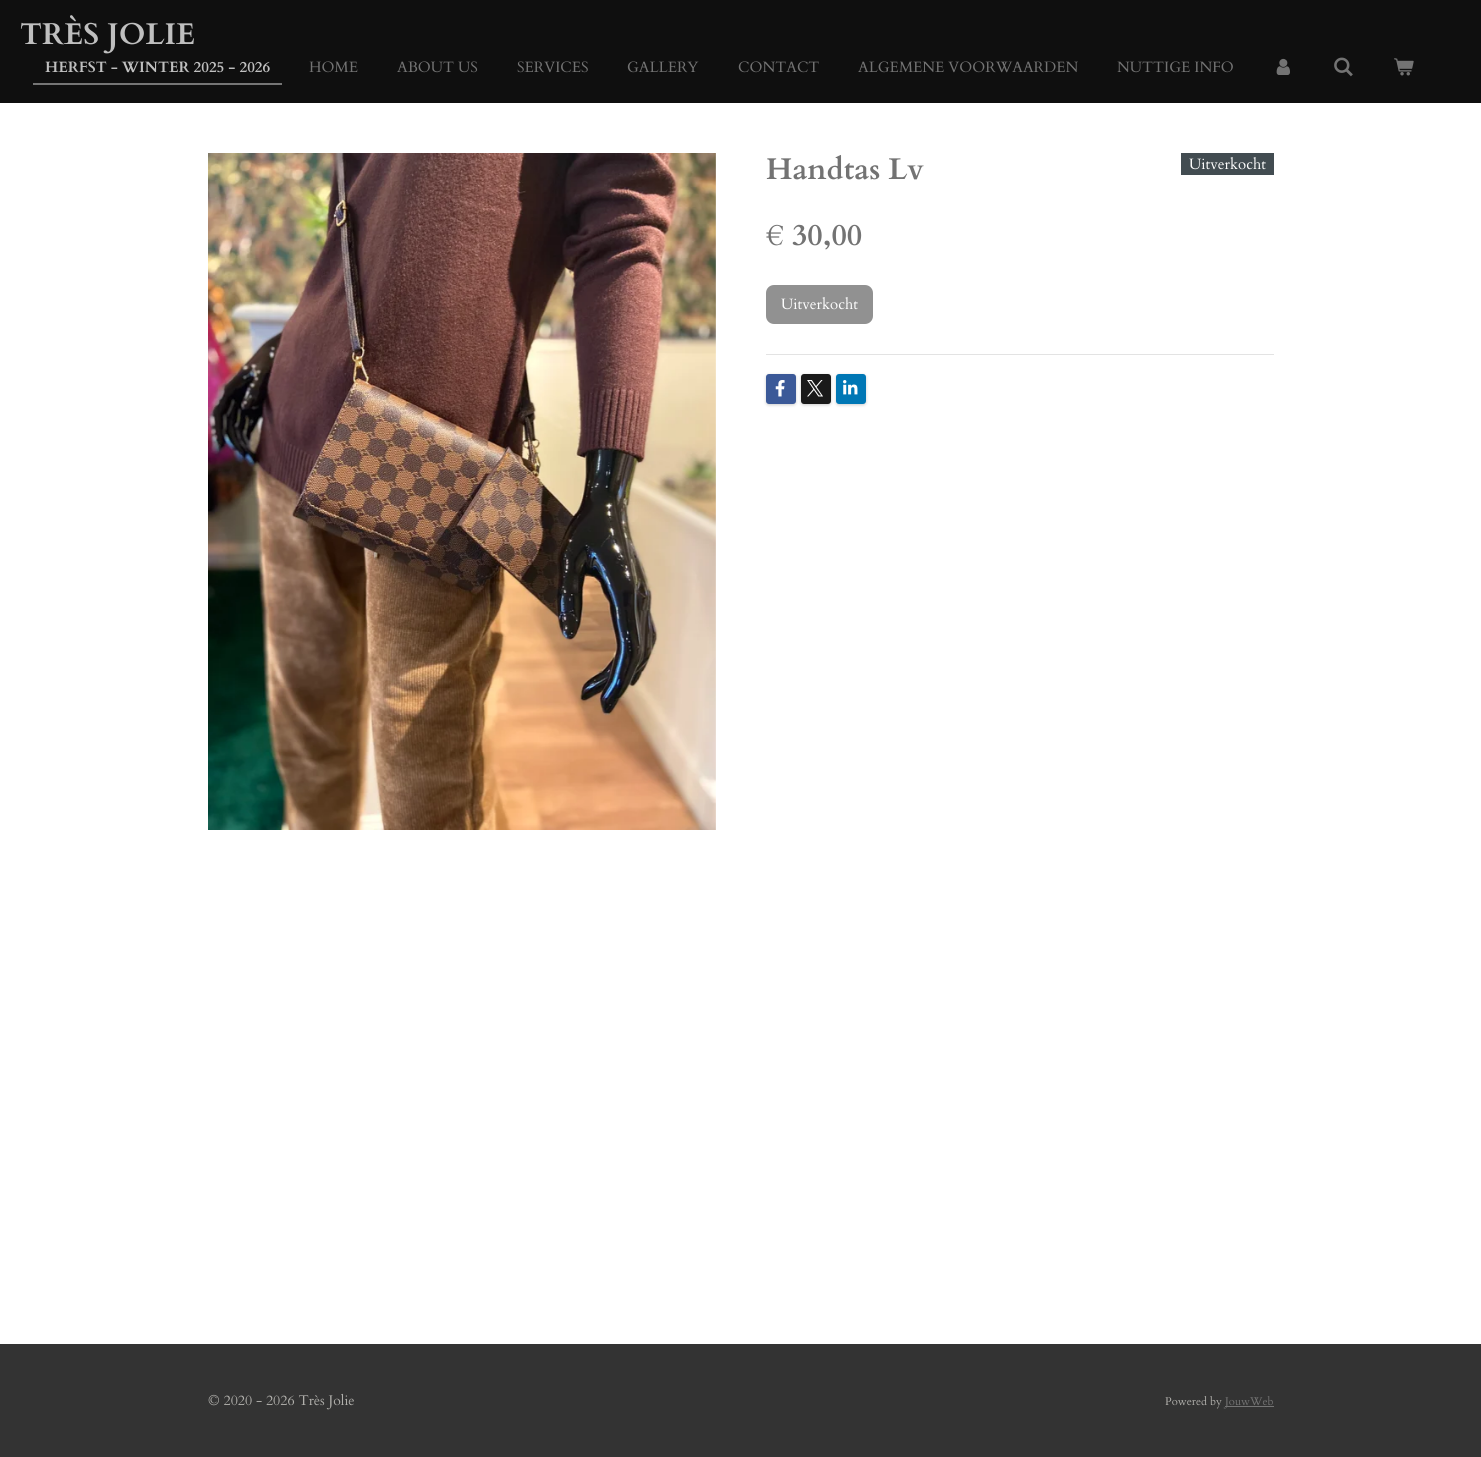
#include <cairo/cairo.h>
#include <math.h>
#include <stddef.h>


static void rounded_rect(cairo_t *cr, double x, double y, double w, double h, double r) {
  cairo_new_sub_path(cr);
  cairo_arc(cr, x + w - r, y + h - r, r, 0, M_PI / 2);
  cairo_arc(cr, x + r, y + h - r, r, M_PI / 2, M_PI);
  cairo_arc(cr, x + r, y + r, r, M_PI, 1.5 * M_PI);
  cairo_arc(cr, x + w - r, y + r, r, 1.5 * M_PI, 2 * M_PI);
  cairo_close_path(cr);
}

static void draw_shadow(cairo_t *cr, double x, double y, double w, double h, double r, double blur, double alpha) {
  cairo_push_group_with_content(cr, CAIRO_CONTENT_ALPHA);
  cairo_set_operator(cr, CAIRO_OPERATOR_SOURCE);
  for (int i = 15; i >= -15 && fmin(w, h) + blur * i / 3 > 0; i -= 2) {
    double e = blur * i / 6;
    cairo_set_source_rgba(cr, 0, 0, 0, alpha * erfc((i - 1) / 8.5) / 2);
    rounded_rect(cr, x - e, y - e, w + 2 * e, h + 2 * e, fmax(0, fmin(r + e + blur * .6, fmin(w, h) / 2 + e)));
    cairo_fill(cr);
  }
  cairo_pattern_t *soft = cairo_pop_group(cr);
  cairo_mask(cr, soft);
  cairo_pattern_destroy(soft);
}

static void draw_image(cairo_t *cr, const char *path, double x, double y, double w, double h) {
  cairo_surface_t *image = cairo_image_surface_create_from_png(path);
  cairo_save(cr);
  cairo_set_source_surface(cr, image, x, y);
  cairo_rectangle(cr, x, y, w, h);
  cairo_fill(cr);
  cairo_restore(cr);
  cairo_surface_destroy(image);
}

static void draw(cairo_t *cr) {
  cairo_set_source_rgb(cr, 15 / 255.0, 15 / 255.0, 15 / 255.0);
  cairo_paint(cr);
  cairo_set_source_rgb(cr, 117 / 255.0, 117 / 255.0, 117 / 255.0);
  cairo_rectangle(cr, 33, 83, 249, 2);
  cairo_fill(cr);
  draw_image(cr, "images/1.png", 1276, 58, 14, 17);
  draw_image(cr, "images/2.png", 1334, 57, 19, 20);
  draw_image(cr, "images/3.png", 1394, 58, 20, 18);
  cairo_set_source_rgb(cr, 1, 1, 1);
  cairo_rectangle(cr, 0, 103, 1481, 1241);
  cairo_fill(cr);
  draw_image(cr, "images/4.png", 208, 153, 508, 677);
  cairo_set_source_rgb(cr, 66 / 255.0, 76 / 255.0, 81 / 255.0);
  cairo_rectangle(cr, 1181, 153, 93, 22);
  cairo_fill(cr);
  cairo_set_source_rgb(cr, 145 / 255.0, 145 / 255.0, 145 / 255.0);
  rounded_rect(cr, 766, 285, 107, 39, 8);
  cairo_fill(cr);
  cairo_set_source_rgb(cr, 227 / 255.0, 227 / 255.0, 227 / 255.0);
  cairo_rectangle(cr, 766, 354, 508, 1);
  cairo_fill(cr);
  cairo_set_source_rgb(cr, 0, 0, 0);
  draw_shadow(cr, 766, 375, 30, 30, 3, 1.5, 0.2);
  cairo_set_source_rgb(cr, 59 / 255.0, 89 / 255.0, 152 / 255.0);
  rounded_rect(cr, 766, 374, 30, 30, 3);
  cairo_fill(cr);
  draw_image(cr, "images/5.png", 775, 380, 10, 17);
  cairo_set_source_rgb(cr, 0, 0, 0);
  draw_shadow(cr, 801, 375, 30, 30, 3, 1.5, 0.2);
  cairo_set_source_rgb(cr, 26 / 255.0, 26 / 255.0, 26 / 255.0);
  rounded_rect(cr, 801, 374, 30, 30, 3);
  cairo_fill(cr);
  draw_image(cr, "images/6.png", 807, 380, 16, 17);
  cairo_set_source_rgb(cr, 0, 0, 0);
  draw_shadow(cr, 836, 375, 30, 30, 3, 1.5, 0.2);
  cairo_set_source_rgb(cr, 0, 119 / 255.0, 181 / 255.0);
  rounded_rect(cr, 836, 374, 30, 30, 3);
  cairo_fill(cr);
  draw_image(cr, "images/7.png", 843, 380, 15, 15);
  cairo_set_source_rgb(cr, 51 / 255.0, 51 / 255.0, 51 / 255.0);
  cairo_rectangle(cr, 0, 1344, 1481, 113);
  cairo_fill(cr);
  cairo_set_source_rgb(cr, 117 / 255.0, 117 / 255.0, 117 / 255.0);
  cairo_rectangle(cr, 1225, 1406, 49, 1);
  cairo_fill(cr);
  cairo_select_font_face(cr, "Cardo", CAIRO_FONT_SLANT_NORMAL, CAIRO_FONT_WEIGHT_BOLD);
  cairo_set_font_size(cr, 30);
  cairo_set_source_rgb(cr, 191 / 255.0, 191 / 255.0, 191 / 255.0);
  cairo_move_to(cr, 20, 44);
  cairo_show_text(cr, "TRÈS JOLIE");
  cairo_set_font_size(cr, 15);
  cairo_move_to(cr, 45, 72);
  cairo_show_text(cr, "HERFST - WINTER 2025 - 2026");
  cairo_select_font_face(cr, "Cardo", CAIRO_FONT_SLANT_NORMAL, CAIRO_FONT_WEIGHT_NORMAL);
  cairo_set_source_rgb(cr, 115 / 255.0, 115 / 255.0, 115 / 255.0);
  cairo_move_to(cr, 309, 72);
  cairo_show_text(cr, "HOME");
  cairo_move_to(cr, 397, 72);
  cairo_show_text(cr, "ABOUT US");
  cairo_move_to(cr, 517, 72);
  cairo_show_text(cr, "SERVICES");
  cairo_move_to(cr, 627, 72);
  cairo_show_text(cr, "GALLERY");
  cairo_move_to(cr, 738, 72);
  cairo_show_text(cr, "CONTACT");
  cairo_move_to(cr, 858, 72);
  cairo_show_text(cr, "ALGEMENE VOORWAARDEN");
  cairo_move_to(cr, 1117, 72);
  cairo_show_text(cr, "NUTTIGE INFO");
  cairo_select_font_face(cr, "Cardo", CAIRO_FONT_SLANT_NORMAL, CAIRO_FONT_WEIGHT_BOLD);
  cairo_set_font_size(cr, 30);
  cairo_move_to(cr, 766, 179);
  cairo_show_text(cr, "Handtas Lv");
  cairo_select_font_face(cr, "Cardo", CAIRO_FONT_SLANT_NORMAL, CAIRO_FONT_WEIGHT_NORMAL);
  cairo_set_font_size(cr, 15);
  cairo_set_source_rgb(cr, 1, 1, 1);
  cairo_move_to(cr, 1189, 169);
  cairo_show_text(cr, "Uitverkocht");
  cairo_select_font_face(cr, "Cardo", CAIRO_FONT_SLANT_NORMAL, CAIRO_FONT_WEIGHT_BOLD);
  cairo_set_font_size(cr, 30);
  cairo_set_source_rgb(cr, 115 / 255.0, 115 / 255.0, 115 / 255.0);
  cairo_move_to(cr, 766, 245);
  cairo_show_text(cr, "€ 30,00");
  cairo_select_font_face(cr, "Cardo", CAIRO_FONT_SLANT_NORMAL, CAIRO_FONT_WEIGHT_NORMAL);
  cairo_set_font_size(cr, 15);
  cairo_set_source_rgb(cr, 1, 1, 1);
  cairo_move_to(cr, 781, 309);
  cairo_show_text(cr, "Uitverkocht");
  cairo_set_font_size(cr, 14);
  cairo_set_source_rgb(cr, 177 / 255.0, 176 / 255.0, 172 / 255.0);
  cairo_move_to(cr, 208, 1405);
  cairo_show_text(cr, "© 2020 - 2026 Très Jolie");
  cairo_set_font_size(cr, 11.25);
  cairo_move_to(cr, 1165, 1405);
  cairo_show_text(cr, "Powered by");
  cairo_set_source_rgb(cr, 115 / 255.0, 115 / 255.0, 115 / 255.0);
  cairo_move_to(cr, 1225, 1405);
  cairo_show_text(cr, "JouwWeb");
}

int main(void) {
  cairo_surface_t *surface = cairo_image_surface_create(CAIRO_FORMAT_RGB24, 1481, 1457);
  cairo_t *cr = cairo_create(surface);
  cairo_font_options_t *options = cairo_font_options_create();
  cairo_font_options_set_hint_metrics(options, CAIRO_HINT_METRICS_OFF);
  cairo_font_options_set_hint_style(options, CAIRO_HINT_STYLE_NONE);
  cairo_set_font_options(cr, options);
  cairo_set_miter_limit(cr, 4);
  draw(cr);
  cairo_surface_write_to_png(surface, "out.png");
  cairo_font_options_destroy(options);
  cairo_destroy(cr);
  cairo_surface_destroy(surface);
  return 0;
}
